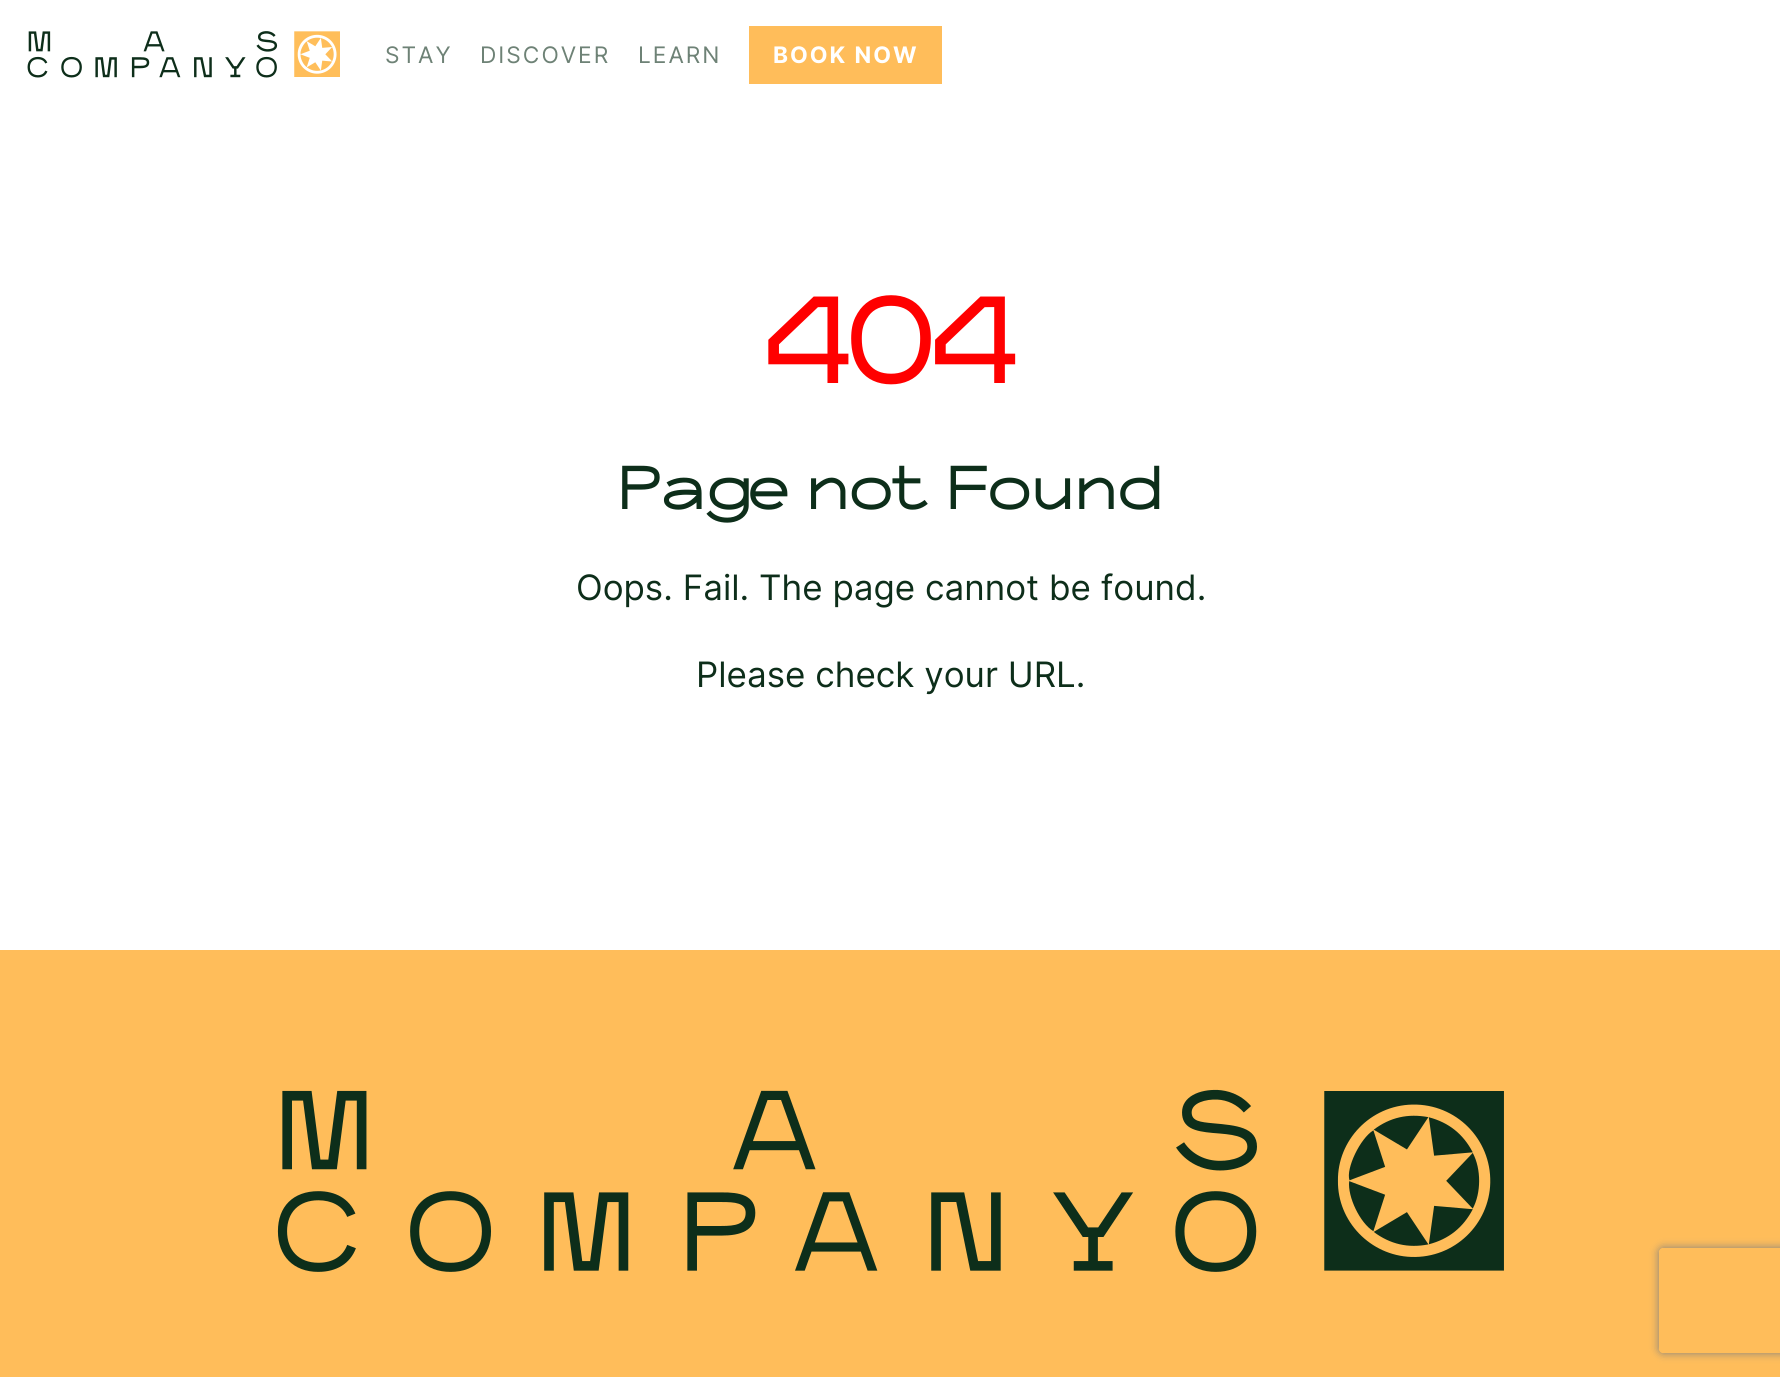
#include <cairo/cairo.h>
#include <math.h>
#include <stddef.h>


static void draw_spaced(cairo_t *cr, double x, double y, const char *s, double letter, double word) {
  cairo_move_to(cr, x, y);
  while (*s) {
    char ch[5] = {0};
    int n = 0;
    do ch[n++] = *s++; while ((*s & 0xC0) == 0x80);
    cairo_show_text(cr, ch);
    cairo_rel_move_to(cr, letter + word * (*ch == ' '), 0);
  }
}

static void rounded_rect(cairo_t *cr, double x, double y, double w, double h, double r) {
  cairo_new_sub_path(cr);
  cairo_arc(cr, x + w - r, y + h - r, r, 0, M_PI / 2);
  cairo_arc(cr, x + r, y + h - r, r, M_PI / 2, M_PI);
  cairo_arc(cr, x + r, y + r, r, M_PI, 1.5 * M_PI);
  cairo_arc(cr, x + w - r, y + r, r, 1.5 * M_PI, 2 * M_PI);
  cairo_close_path(cr);
}

static void draw_shadow(cairo_t *cr, double x, double y, double w, double h, double r, double blur, double alpha) {
  cairo_push_group_with_content(cr, CAIRO_CONTENT_ALPHA);
  cairo_set_operator(cr, CAIRO_OPERATOR_SOURCE);
  for (int i = 15; i >= -15 && fmin(w, h) + blur * i / 3 > 0; i -= 2) {
    double e = blur * i / 6;
    cairo_set_source_rgba(cr, 0, 0, 0, alpha * erfc((i - 1) / 8.5) / 2);
    rounded_rect(cr, x - e, y - e, w + 2 * e, h + 2 * e, fmax(0, fmin(r + e + blur * .6, fmin(w, h) / 2 + e)));
    cairo_fill(cr);
  }
  cairo_pattern_t *soft = cairo_pop_group(cr);
  cairo_mask(cr, soft);
  cairo_pattern_destroy(soft);
}

static void draw_image(cairo_t *cr, const char *path, double x, double y, double w, double h) {
  cairo_surface_t *image = cairo_image_surface_create_from_png(path);
  cairo_save(cr);
  cairo_set_source_surface(cr, image, x, y);
  cairo_rectangle(cr, x, y, w, h);
  cairo_fill(cr);
  cairo_restore(cr);
  cairo_surface_destroy(image);
}

static void draw(cairo_t *cr) {
  cairo_set_source_rgb(cr, 1, 1, 1);
  cairo_paint(cr);
  draw_image(cr, "images/1.png", 27, 31, 313, 47);
  cairo_set_source_rgb(cr, 1, 189 / 255.0, 90 / 255.0);
  cairo_rectangle(cr, 749, 26, 193, 58);
  cairo_fill(cr);
  cairo_rectangle(cr, 0, 950, 1780, 427);
  cairo_fill(cr);
  draw_image(cr, "images/2.png", 277, 1089, 1227, 183);
  cairo_save(cr);
  cairo_set_fill_rule(cr, CAIRO_FILL_RULE_EVEN_ODD);
  cairo_new_path(cr);
  cairo_move_to(cr, 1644, 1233);
  cairo_line_to(cr, 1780, 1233);
  cairo_line_to(cr, 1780, 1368);
  cairo_line_to(cr, 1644, 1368);
  cairo_close_path(cr);
  cairo_move_to(cr, 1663, 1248);
  cairo_line_to(cr, 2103, 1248);
  cairo_curve_to(cr, 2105, 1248, 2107, 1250, 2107, 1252);
  cairo_line_to(cr, 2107, 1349);
  cairo_curve_to(cr, 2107, 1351, 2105, 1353, 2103, 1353);
  cairo_line_to(cr, 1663, 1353);
  cairo_curve_to(cr, 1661, 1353, 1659, 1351, 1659, 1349);
  cairo_line_to(cr, 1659, 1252);
  cairo_curve_to(cr, 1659, 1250, 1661, 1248, 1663, 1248);
  cairo_close_path(cr);
  cairo_clip(cr);
  cairo_set_source_rgb(cr, 128 / 255.0, 128 / 255.0, 128 / 255.0);
  draw_shadow(cr, 1659, 1248, 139, 105, 4, 4.5, 1);
  cairo_restore(cr);
  cairo_select_font_face(cr, "Inter", CAIRO_FONT_SLANT_NORMAL, CAIRO_FONT_WEIGHT_NORMAL);
  cairo_set_font_size(cr, 22.75);
  cairo_set_source_rgb(cr, 110 / 255.0, 130 / 255.0, 118 / 255.0);
  draw_spaced(cr, 385, 63, "STAY", 2, 0);
  draw_spaced(cr, 480, 63, "DISCOVER", 2, 0);
  draw_spaced(cr, 638, 63, "LEARN", 2, 0);
  cairo_select_font_face(cr, "Inter", CAIRO_FONT_SLANT_NORMAL, CAIRO_FONT_WEIGHT_BOLD);
  cairo_set_source_rgb(cr, 1, 1, 1);
  draw_spaced(cr, 773, 63, "BOOK NOW", 2, 0);
  cairo_select_font_face(cr, "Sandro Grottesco", CAIRO_FONT_SLANT_NORMAL, CAIRO_FONT_WEIGHT_NORMAL);
  cairo_set_font_size(cr, 112);
  cairo_set_source_rgb(cr, 1, 0, 0);
  cairo_move_to(cr, 769, 383);
  cairo_show_text(cr, "404");
  cairo_set_font_size(cr, 56);
  cairo_set_source_rgb(cr, 13 / 255.0, 46 / 255.0, 26 / 255.0);
  cairo_move_to(cr, 617, 509);
  cairo_show_text(cr, "Page not Found");
  cairo_select_font_face(cr, "Inter", CAIRO_FONT_SLANT_NORMAL, CAIRO_FONT_WEIGHT_NORMAL);
  cairo_set_font_size(cr, 35);
  cairo_move_to(cr, 576, 600);
  cairo_show_text(cr, "Oops. Fail. The page cannot be found.");
  cairo_move_to(cr, 696, 687);
  cairo_show_text(cr, "Please check your URL.");
}

int main(void) {
  cairo_surface_t *surface = cairo_image_surface_create(CAIRO_FORMAT_RGB24, 1780, 1377);
  cairo_t *cr = cairo_create(surface);
  cairo_font_options_t *options = cairo_font_options_create();
  cairo_font_options_set_hint_metrics(options, CAIRO_HINT_METRICS_OFF);
  cairo_font_options_set_hint_style(options, CAIRO_HINT_STYLE_NONE);
  cairo_set_font_options(cr, options);
  cairo_set_miter_limit(cr, 4);
  draw(cr);
  cairo_surface_write_to_png(surface, "out.png");
  cairo_font_options_destroy(options);
  cairo_destroy(cr);
  cairo_surface_destroy(surface);
  return 0;
}
